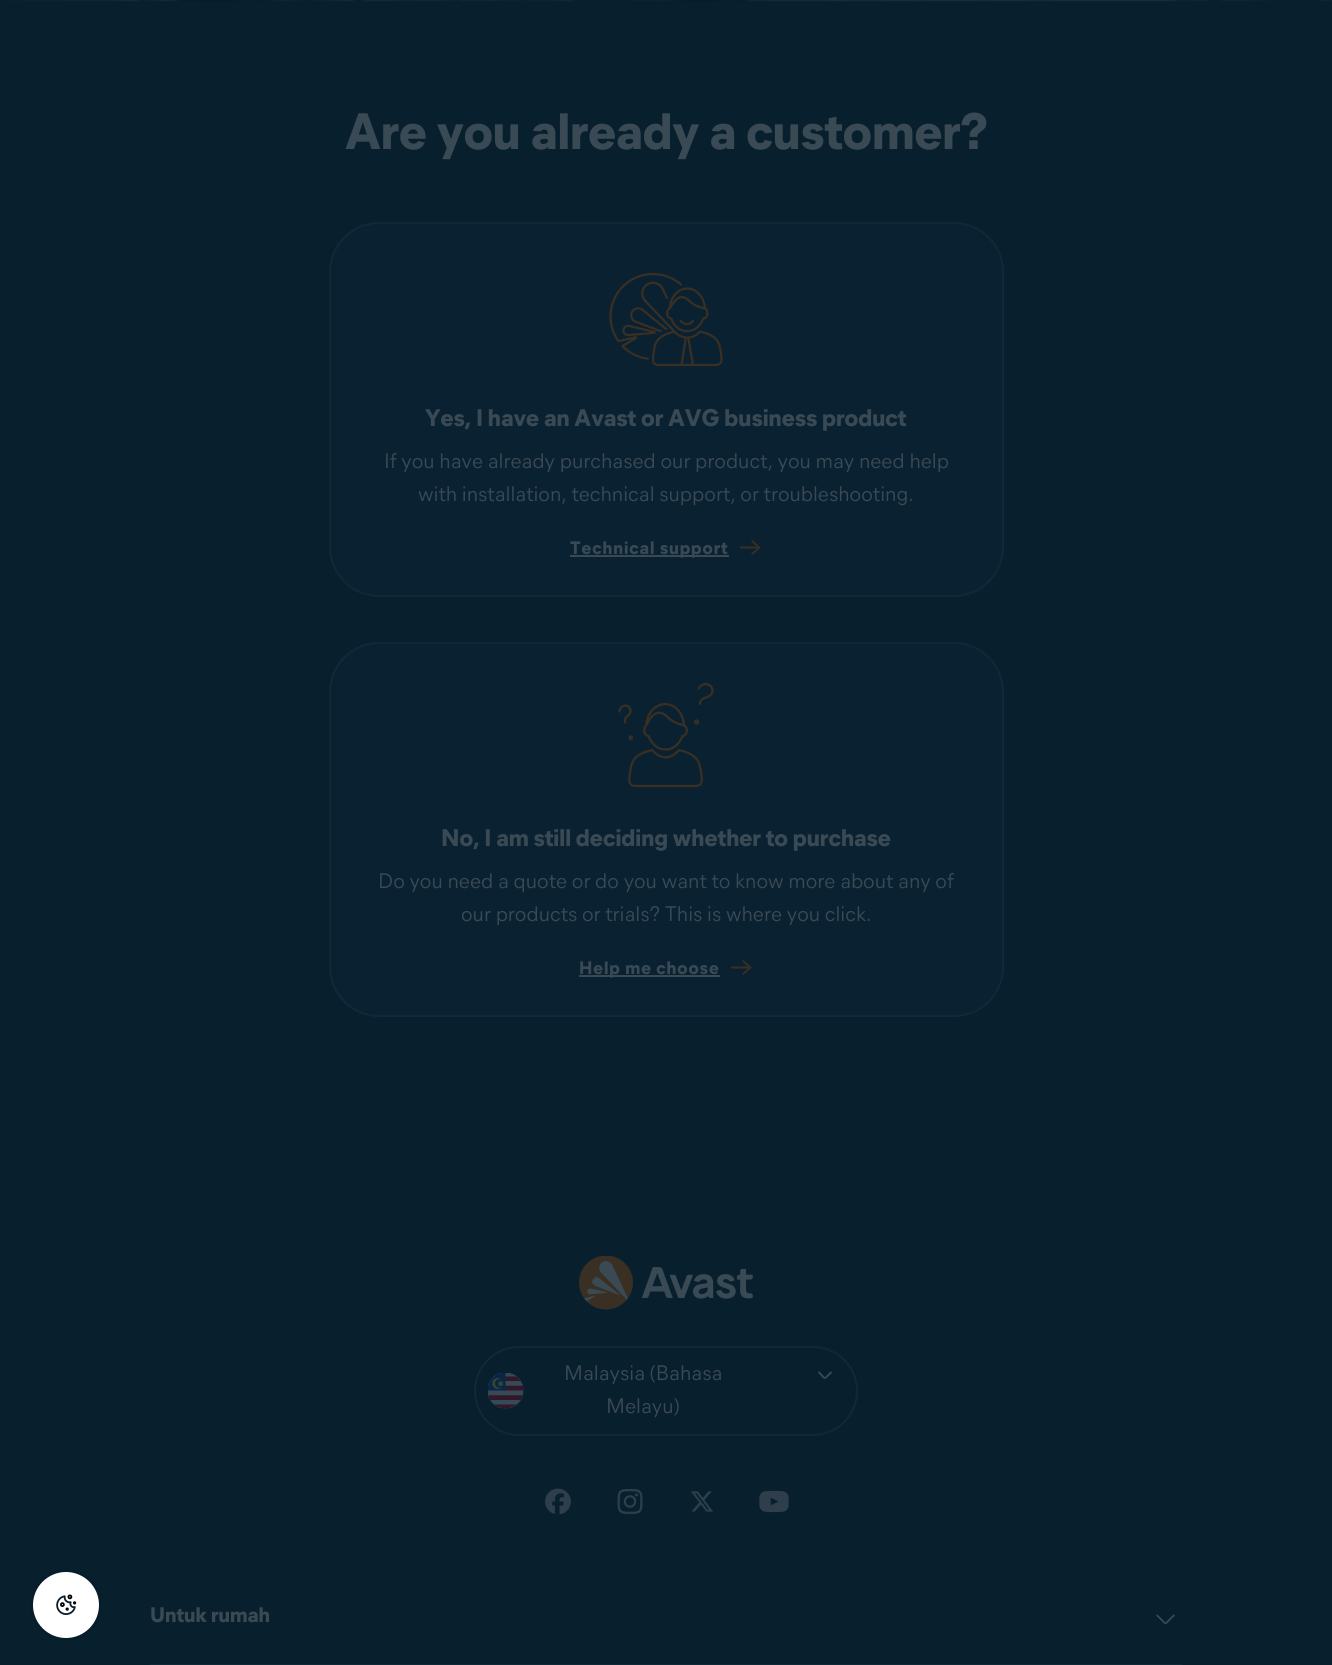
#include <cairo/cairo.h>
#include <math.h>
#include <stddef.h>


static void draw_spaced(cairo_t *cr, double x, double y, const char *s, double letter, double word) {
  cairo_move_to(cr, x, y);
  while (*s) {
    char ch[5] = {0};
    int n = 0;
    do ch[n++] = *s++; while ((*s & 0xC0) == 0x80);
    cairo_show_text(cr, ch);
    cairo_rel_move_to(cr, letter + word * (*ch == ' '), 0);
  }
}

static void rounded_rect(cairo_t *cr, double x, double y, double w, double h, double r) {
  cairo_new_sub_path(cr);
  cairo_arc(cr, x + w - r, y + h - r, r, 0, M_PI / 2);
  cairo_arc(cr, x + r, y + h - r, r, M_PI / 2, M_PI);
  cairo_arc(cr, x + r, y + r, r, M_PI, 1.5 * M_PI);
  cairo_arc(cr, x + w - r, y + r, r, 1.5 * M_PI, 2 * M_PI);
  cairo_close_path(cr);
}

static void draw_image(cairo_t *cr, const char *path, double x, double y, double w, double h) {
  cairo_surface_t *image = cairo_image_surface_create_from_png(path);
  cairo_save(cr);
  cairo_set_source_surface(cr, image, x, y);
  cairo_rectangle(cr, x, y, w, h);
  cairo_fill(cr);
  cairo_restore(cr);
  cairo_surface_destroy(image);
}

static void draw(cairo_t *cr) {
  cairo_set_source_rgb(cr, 8 / 255.0, 31 / 255.0, 45 / 255.0);
  cairo_paint(cr);
  cairo_set_source_rgb(cr, 1, 1, 1);
  cairo_arc(cr, 66, 1605, 34.5, 0, 2 * M_PI);
  cairo_fill_preserve(cr);
  cairo_set_source_rgb(cr, 7 / 255.0, 29 / 255.0, 43 / 255.0);
  cairo_set_line_width(cr, 3);
  cairo_stroke(cr);
  draw_image(cr, "images/1.png", 56, 1594, 21, 21);
  draw_image(cr, "images/2.png", 0, 0, 1332, 2);
  cairo_set_source_rgb(cr, 10 / 255.0, 33 / 255.0, 49 / 255.0);
  rounded_rect(cr, 330, 224, 672, 372, 48);
  cairo_fill(cr);
  draw_image(cr, "images/3.png", 609, 272, 114, 95);
  cairo_set_source_rgb(cr, 57 / 255.0, 74 / 255.0, 85 / 255.0);
  cairo_rectangle(cr, 570, 555, 159, 2);
  cairo_fill(cr);
  rounded_rect(cr, 330, 223, 673, 373, 49);
  cairo_set_source_rgb(cr, 16 / 255.0, 41 / 255.0, 57 / 255.0);
  cairo_set_line_width(cr, 2);
  cairo_stroke(cr);
  draw_image(cr, "images/4.png", 739, 540, 22, 15);
  cairo_set_source_rgb(cr, 10 / 255.0, 33 / 255.0, 49 / 255.0);
  rounded_rect(cr, 330, 644, 672, 372, 48);
  cairo_fill(cr);
  draw_image(cr, "images/5.png", 618, 683, 96, 105);
  cairo_set_source_rgb(cr, 57 / 255.0, 74 / 255.0, 85 / 255.0);
  cairo_rectangle(cr, 579, 975, 141, 2);
  cairo_fill(cr);
  rounded_rect(cr, 330, 643, 673, 373, 49);
  cairo_set_source_rgb(cr, 16 / 255.0, 41 / 255.0, 57 / 255.0);
  cairo_stroke(cr);
  draw_image(cr, "images/4.png", 730, 960, 22, 15);
  draw_image(cr, "images/6.png", 579, 1256, 174, 54);
  rounded_rect(cr, 475, 1347, 382, 88, 44);
  cairo_stroke(cr);
  draw_image(cr, "images/7.png", 488, 1373, 36, 36);
  draw_image(cr, "images/8.png", 818, 1371, 14, 8);
  draw_image(cr, "images/9.png", 545, 1488, 26, 27);
  draw_image(cr, "images/10.png", 617, 1489, 26, 25);
  draw_image(cr, "images/11.png", 691, 1491, 23, 21);
  draw_image(cr, "images/12.png", 759, 1490, 30, 23);
  cairo_rectangle(cr, 150, 1664, 1032, 1);
  cairo_fill(cr);
  draw_image(cr, "images/13.png", 1156, 1614, 19, 11);
  cairo_select_font_face(cr, "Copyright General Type", CAIRO_FONT_SLANT_NORMAL, CAIRO_FONT_WEIGHT_BOLD);
  cairo_set_font_size(cr, 51);
  cairo_set_source_rgb(cr, 57 / 255.0, 74 / 255.0, 85 / 255.0);
  cairo_move_to(cr, 345, 149);
  cairo_show_text(cr, "Are you already a customer?");
  cairo_set_font_size(cr, 24);
  cairo_move_to(cr, 425, 426);
  cairo_show_text(cr, "Yes, I have an Avast or AVG business product");
  cairo_select_font_face(cr, "Copyright General Type", CAIRO_FONT_SLANT_NORMAL, CAIRO_FONT_WEIGHT_NORMAL);
  cairo_set_font_size(cr, 21);
  cairo_move_to(cr, 384, 468);
  cairo_show_text(cr, "If you have already purchased our product, you may need help");
  cairo_move_to(cr, 418, 501);
  cairo_show_text(cr, "with installation, technical support, or troubleshooting.");
  cairo_select_font_face(cr, "Copyright General Type", CAIRO_FONT_SLANT_NORMAL, CAIRO_FONT_WEIGHT_BOLD);
  cairo_set_font_size(cr, 18);
  draw_spaced(cr, 570, 554, "Technical support", 0.9, 0);
  cairo_set_font_size(cr, 24);
  cairo_move_to(cr, 441, 846);
  cairo_show_text(cr, "No, I am still deciding whether to purchase");
  cairo_select_font_face(cr, "Copyright General Type", CAIRO_FONT_SLANT_NORMAL, CAIRO_FONT_WEIGHT_NORMAL);
  cairo_set_font_size(cr, 21);
  cairo_move_to(cr, 378, 888);
  cairo_show_text(cr, "Do you need a quote or do you want to know more about any of");
  cairo_move_to(cr, 461, 921);
  cairo_show_text(cr, "our products or trials? This is where you click.");
  cairo_select_font_face(cr, "Copyright General Type", CAIRO_FONT_SLANT_NORMAL, CAIRO_FONT_WEIGHT_BOLD);
  cairo_set_font_size(cr, 18);
  draw_spaced(cr, 579, 974, "Help me choose", 0.9, 0);
  cairo_select_font_face(cr, "Copyright General Type", CAIRO_FONT_SLANT_NORMAL, CAIRO_FONT_WEIGHT_NORMAL);
  cairo_set_font_size(cr, 21);
  cairo_move_to(cr, 564, 1380);
  cairo_show_text(cr, "Malaysia (Bahasa");
  cairo_move_to(cr, 606, 1413);
  cairo_show_text(cr, "Melayu)");
  cairo_select_font_face(cr, "Copyright General Type", CAIRO_FONT_SLANT_NORMAL, CAIRO_FONT_WEIGHT_BOLD);
  cairo_move_to(cr, 150, 1622);
  cairo_show_text(cr, "Untuk rumah");
}

int main(void) {
  cairo_surface_t *surface = cairo_image_surface_create(CAIRO_FORMAT_RGB24, 1332, 1665);
  cairo_t *cr = cairo_create(surface);
  cairo_font_options_t *options = cairo_font_options_create();
  cairo_font_options_set_hint_metrics(options, CAIRO_HINT_METRICS_OFF);
  cairo_font_options_set_hint_style(options, CAIRO_HINT_STYLE_NONE);
  cairo_set_font_options(cr, options);
  cairo_set_miter_limit(cr, 4);
  draw(cr);
  cairo_surface_write_to_png(surface, "out.png");
  cairo_font_options_destroy(options);
  cairo_destroy(cr);
  cairo_surface_destroy(surface);
  return 0;
}
